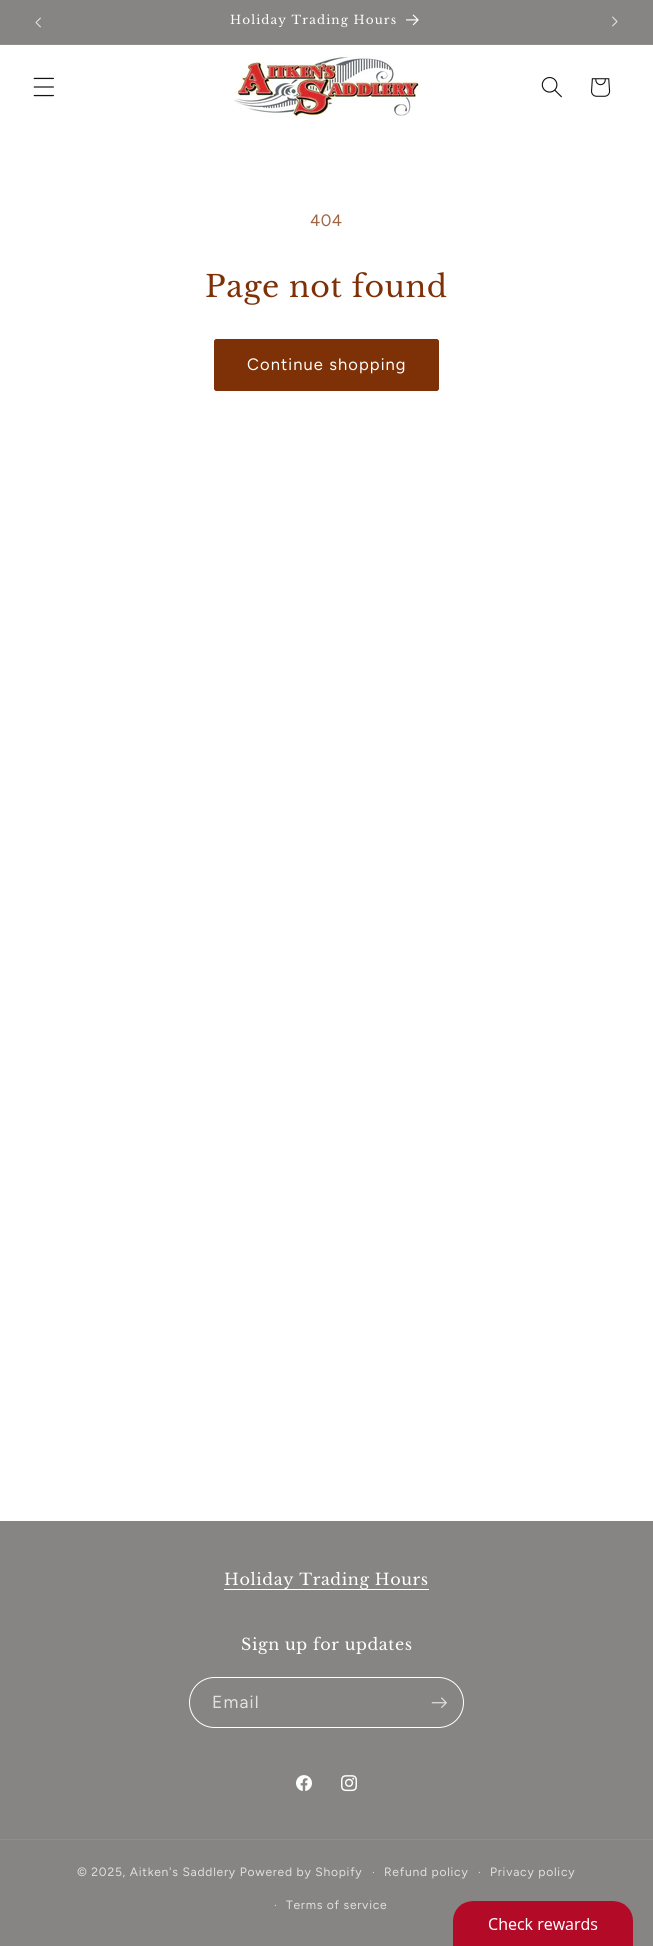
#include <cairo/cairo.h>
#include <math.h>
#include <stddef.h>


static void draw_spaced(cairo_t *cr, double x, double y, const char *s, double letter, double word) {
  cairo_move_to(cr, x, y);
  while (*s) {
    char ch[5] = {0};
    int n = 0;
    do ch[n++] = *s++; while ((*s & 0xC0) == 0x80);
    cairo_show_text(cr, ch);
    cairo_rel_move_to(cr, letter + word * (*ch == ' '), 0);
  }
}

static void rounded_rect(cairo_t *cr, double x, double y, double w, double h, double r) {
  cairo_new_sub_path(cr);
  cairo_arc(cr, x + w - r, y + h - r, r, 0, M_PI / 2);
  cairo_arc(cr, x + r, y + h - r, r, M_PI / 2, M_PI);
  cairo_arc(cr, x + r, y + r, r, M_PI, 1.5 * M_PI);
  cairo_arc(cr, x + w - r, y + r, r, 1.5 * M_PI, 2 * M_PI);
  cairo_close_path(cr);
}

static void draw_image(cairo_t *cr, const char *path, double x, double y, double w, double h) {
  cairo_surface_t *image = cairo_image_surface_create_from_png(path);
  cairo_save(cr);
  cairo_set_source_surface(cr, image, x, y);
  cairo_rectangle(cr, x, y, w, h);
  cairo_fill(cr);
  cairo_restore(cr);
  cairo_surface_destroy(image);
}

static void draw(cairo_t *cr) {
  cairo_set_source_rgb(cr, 1, 1, 1);
  cairo_paint(cr);
  cairo_set_source_rgb(cr, 134 / 255.0, 133 / 255.0, 132 / 255.0);
  cairo_rectangle(cr, 0, 0, 653, 44);
  cairo_fill(cr);
  cairo_set_source_rgb(cr, 144 / 255.0, 143 / 255.0, 142 / 255.0);
  cairo_rectangle(cr, 0, 44, 653, 1);
  cairo_fill(cr);
  draw_image(cr, "images/1.png", 35, 17, 6, 11);
  draw_image(cr, "images/2.png", 406, 14, 13, 12);
  draw_image(cr, "images/3.png", 612, 16, 6, 11);
  draw_image(cr, "images/4.png", 33, 77, 21, 20);
  draw_image(cr, "images/5.png", 234, 55, 186, 63);
  draw_image(cr, "images/6.png", 541, 76, 21, 22);
  draw_image(cr, "images/7.png", 591, 78, 20, 19);
  cairo_set_source_rgb(cr, 126 / 255.0, 48 / 255.0, 7 / 255.0);
  rounded_rect(cr, 214, 339, 225, 52, 3);
  cairo_fill(cr);
  rounded_rect(cr, 214.5, 339.5, 224, 51, 2.5);
  cairo_set_line_width(cr, 1);
  cairo_stroke(cr);
  cairo_set_source_rgb(cr, 134 / 255.0, 133 / 255.0, 132 / 255.0);
  cairo_rectangle(cr, 0, 1521, 653, 425);
  cairo_fill(cr);
  cairo_set_source_rgb(cr, 1, 1, 1);
  cairo_rectangle(cr, 224, 1589, 205, 1);
  cairo_fill(cr);
  rounded_rect(cr, 189.5, 1677.5, 274, 50, 25);
  cairo_stroke(cr);
  draw_image(cr, "images/8.png", 431, 1697, 16, 11);
  draw_image(cr, "images/9.png", 296, 1775, 16, 16);
  draw_image(cr, "images/10.png", 341, 1775, 16, 17);
  cairo_set_source_rgb(cr, 144 / 255.0, 143 / 255.0, 142 / 255.0);
  cairo_rectangle(cr, 0, 1839, 653, 1);
  cairo_fill(cr);
  draw_image(cr, "images/11.png", 453, 1901, 180, 45);
  cairo_select_font_face(cr, "Libre Baskerville", CAIRO_FONT_SLANT_NORMAL, CAIRO_FONT_WEIGHT_NORMAL);
  cairo_set_font_size(cr, 12);
  cairo_set_source_rgb(cr, 1, 1, 1);
  draw_spaced(cr, 230, 24, "Holiday Trading Hours", 1.1, 0);
  cairo_select_font_face(cr, "Figtree", CAIRO_FONT_SLANT_NORMAL, CAIRO_FONT_WEIGHT_NORMAL);
  cairo_set_font_size(cr, 16.5);
  cairo_set_source_rgb(cr, 158 / 255.0, 100 / 255.0, 69 / 255.0);
  draw_spaced(cr, 310, 226, "404", 0.5, 0);
  cairo_select_font_face(cr, "Libre Baskerville", CAIRO_FONT_SLANT_NORMAL, CAIRO_FONT_WEIGHT_NORMAL);
  cairo_set_font_size(cr, 30);
  cairo_set_source_rgb(cr, 126 / 255.0, 48 / 255.0, 7 / 255.0);
  draw_spaced(cr, 205, 297, "Page not found", 0.6, 0);
  cairo_select_font_face(cr, "Figtree", CAIRO_FONT_SLANT_NORMAL, CAIRO_FONT_WEIGHT_NORMAL);
  cairo_set_font_size(cr, 16.5);
  cairo_set_source_rgb(cr, 1, 1, 1);
  draw_spaced(cr, 247, 370, "Continue shopping", 1.1, 0);
  cairo_select_font_face(cr, "Libre Baskerville", CAIRO_FONT_SLANT_NORMAL, CAIRO_FONT_WEIGHT_NORMAL);
  cairo_set_font_size(cr, 16);
  draw_spaced(cr, 224, 1585, "Holiday Trading Hours", 0.6, 0);
  draw_spaced(cr, 241, 1650, "Sign up for updates", 0.6, 0);
  cairo_select_font_face(cr, "Figtree", CAIRO_FONT_SLANT_NORMAL, CAIRO_FONT_WEIGHT_NORMAL);
  cairo_set_font_size(cr, 17.5);
  cairo_set_source_rgb(cr, 225 / 255.0, 225 / 255.0, 224 / 255.0);
  draw_spaced(cr, 212, 1708, "Email", 1.1, 0);
  cairo_set_font_size(cr, 12.1);
  draw_spaced(cr, 77, 1876, "© 2025, Aitken's Saddlery Powered by Shopify", 0.75, 0);
  cairo_set_font_size(cr, 11);
  draw_spaced(cr, 372, 1876, "·", 0.75, 0);
  cairo_set_font_size(cr, 12.1);
  draw_spaced(cr, 384, 1876, "Refund policy", 0.75, 0);
  cairo_set_font_size(cr, 11);
  draw_spaced(cr, 478, 1876, "·", 0.75, 0);
  cairo_set_font_size(cr, 12.1);
  draw_spaced(cr, 490, 1876, "Privacy policy", 0.75, 0);
  cairo_set_font_size(cr, 11);
  draw_spaced(cr, 274, 1909, "·", 0.75, 0);
  cairo_set_font_size(cr, 12.1);
  draw_spaced(cr, 286, 1909, "Terms of service", 0.75, 0);
}

int main(void) {
  cairo_surface_t *surface = cairo_image_surface_create(CAIRO_FORMAT_RGB24, 653, 1946);
  cairo_t *cr = cairo_create(surface);
  cairo_font_options_t *options = cairo_font_options_create();
  cairo_font_options_set_hint_metrics(options, CAIRO_HINT_METRICS_OFF);
  cairo_font_options_set_hint_style(options, CAIRO_HINT_STYLE_NONE);
  cairo_set_font_options(cr, options);
  cairo_set_miter_limit(cr, 4);
  draw(cr);
  cairo_surface_write_to_png(surface, "out.png");
  cairo_font_options_destroy(options);
  cairo_destroy(cr);
  cairo_surface_destroy(surface);
  return 0;
}
